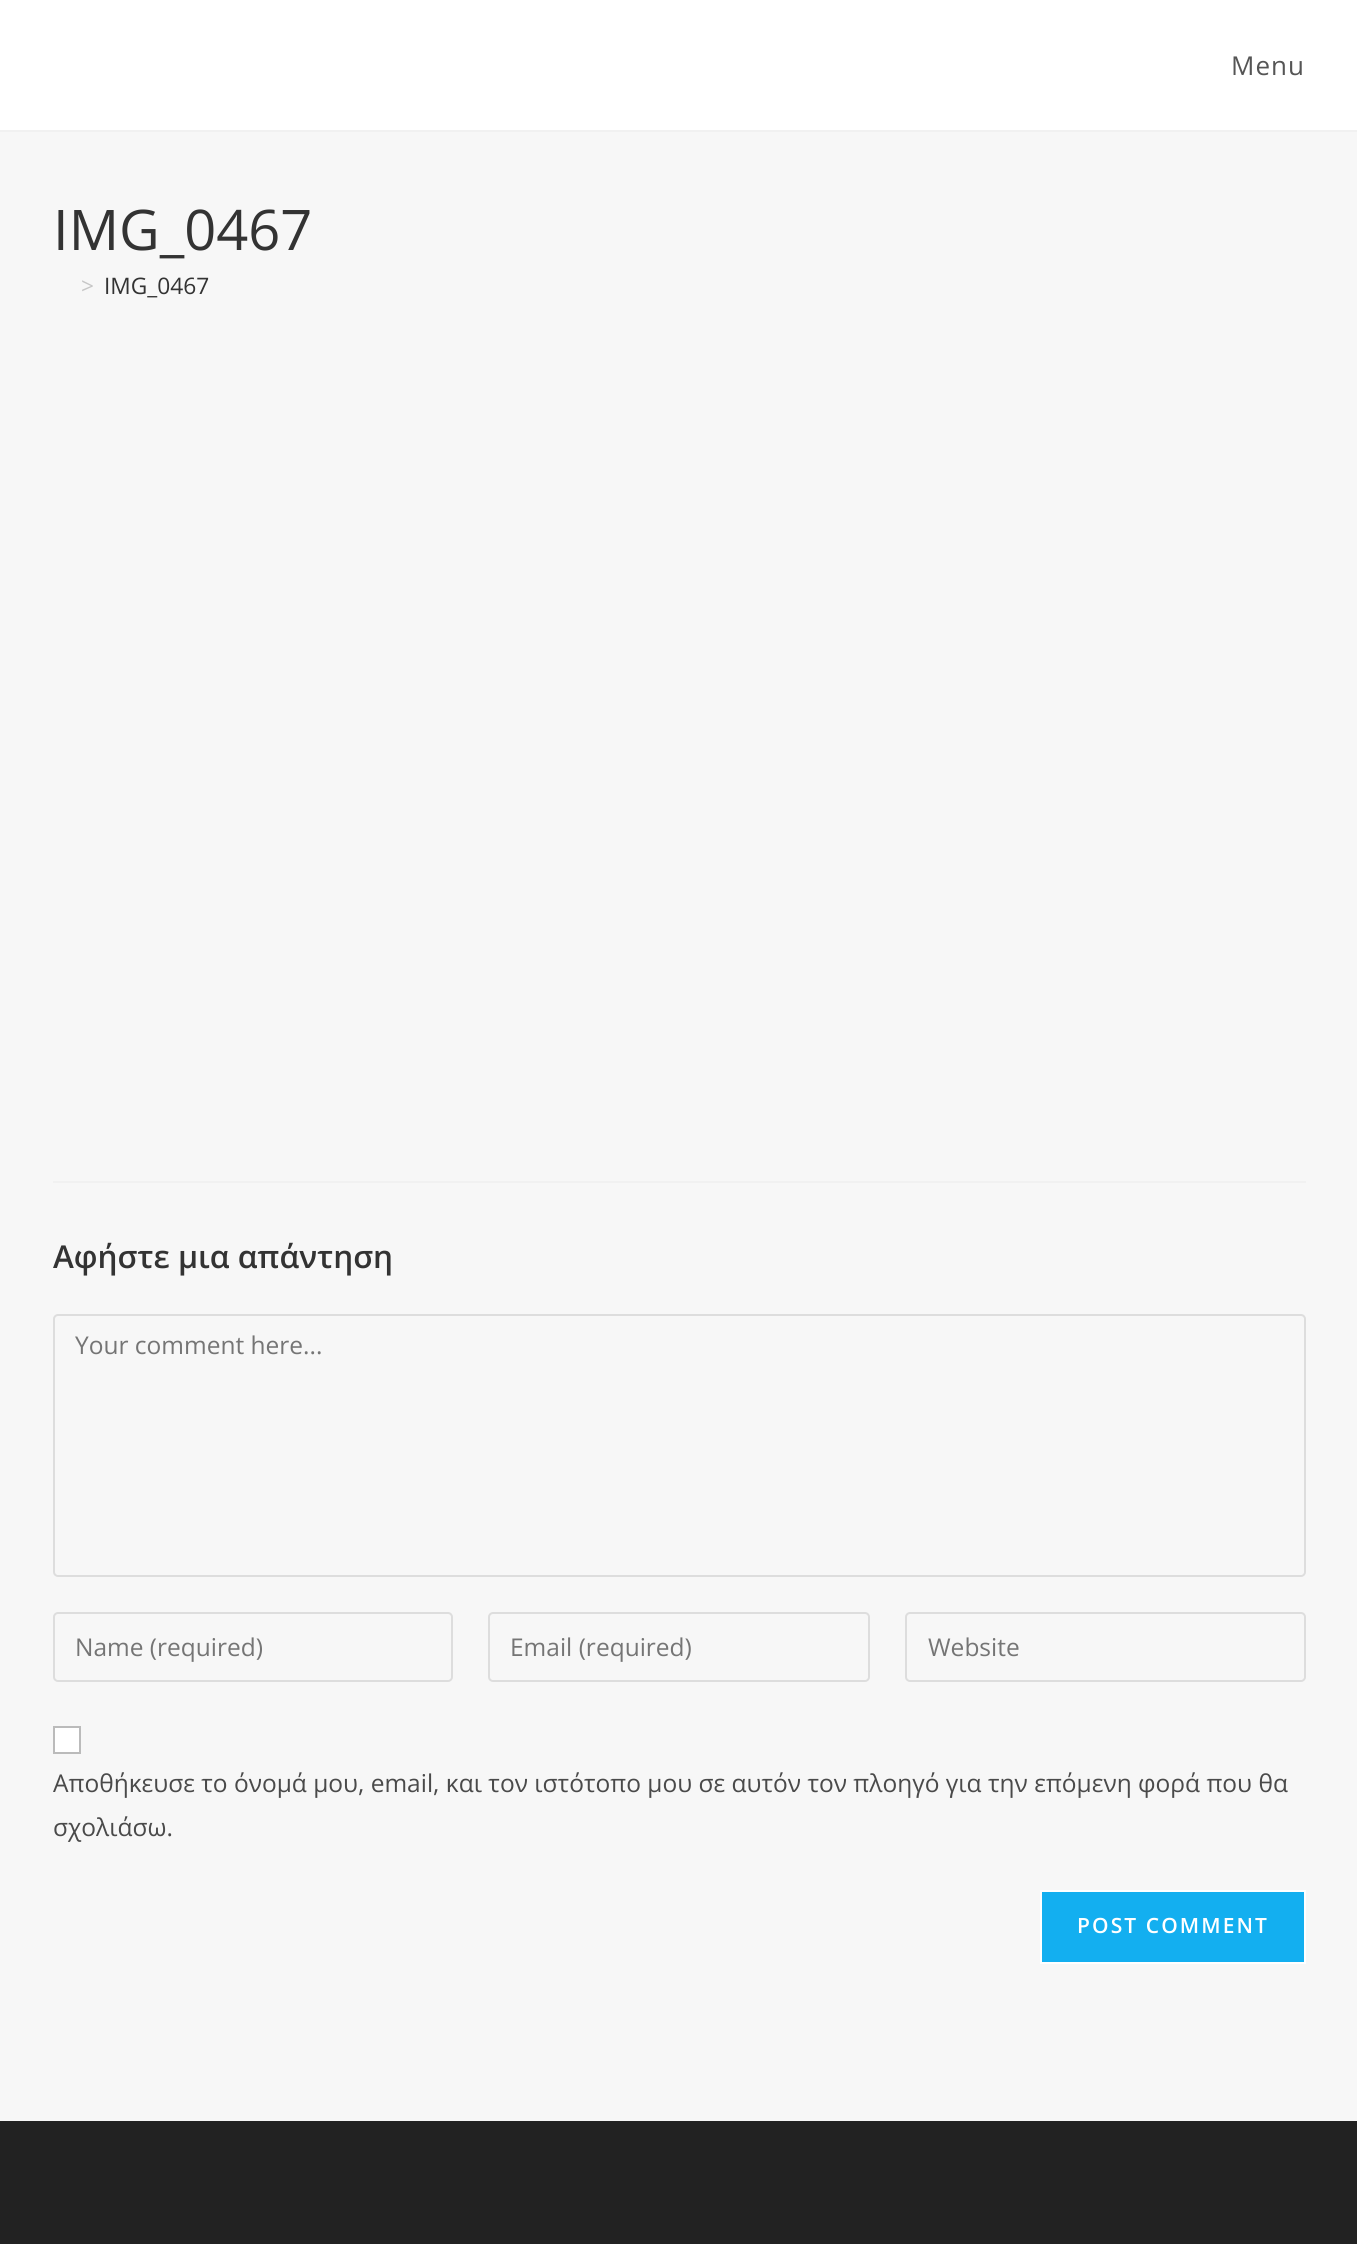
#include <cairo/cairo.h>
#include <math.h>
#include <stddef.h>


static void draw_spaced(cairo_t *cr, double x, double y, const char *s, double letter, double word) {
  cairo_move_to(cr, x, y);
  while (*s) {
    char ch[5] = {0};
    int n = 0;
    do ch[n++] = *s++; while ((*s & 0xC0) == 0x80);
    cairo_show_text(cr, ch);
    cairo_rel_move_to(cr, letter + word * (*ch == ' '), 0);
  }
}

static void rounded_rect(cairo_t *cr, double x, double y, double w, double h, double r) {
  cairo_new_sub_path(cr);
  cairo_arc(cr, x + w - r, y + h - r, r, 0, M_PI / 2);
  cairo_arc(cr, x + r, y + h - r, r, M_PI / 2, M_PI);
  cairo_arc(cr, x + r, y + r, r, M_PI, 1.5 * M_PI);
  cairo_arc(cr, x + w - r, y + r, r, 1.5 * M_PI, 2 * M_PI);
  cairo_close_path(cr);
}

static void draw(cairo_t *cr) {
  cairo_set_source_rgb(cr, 247 / 255.0, 247 / 255.0, 247 / 255.0);
  cairo_paint(cr);
  cairo_set_source_rgb(cr, 1, 1, 1);
  cairo_rectangle(cr, 0, 0, 1357, 130);
  cairo_fill(cr);
  cairo_set_source_rgb(cr, 241 / 255.0, 241 / 255.0, 241 / 255.0);
  cairo_rectangle(cr, 0, 130, 1357, 2);
  cairo_fill(cr);
  cairo_rectangle(cr, 53, 1181, 1253, 2);
  cairo_fill(cr);
  rounded_rect(cr, 54, 1315, 1251, 261, 4);
  cairo_set_source_rgb(cr, 221 / 255.0, 221 / 255.0, 221 / 255.0);
  cairo_stroke(cr);
  rounded_rect(cr, 54, 1613, 398, 68, 4);
  cairo_stroke(cr);
  rounded_rect(cr, 489, 1613, 380, 68, 4);
  cairo_stroke(cr);
  rounded_rect(cr, 906, 1613, 399, 68, 4);
  cairo_stroke(cr);
  cairo_set_source_rgb(cr, 1, 1, 1);
  cairo_rectangle(cr, 54, 1727, 26, 26);
  cairo_fill_preserve(cr);
  cairo_set_source_rgb(cr, 187 / 255.0, 187 / 255.0, 187 / 255.0);
  cairo_stroke(cr);
  cairo_set_source_rgb(cr, 19 / 255.0, 175 / 255.0, 240 / 255.0);
  cairo_rectangle(cr, 1041, 1891, 264, 72);
  cairo_fill_preserve(cr);
  cairo_set_source_rgb(cr, 1, 1, 1);
  cairo_stroke(cr);
  cairo_set_source_rgb(cr, 34 / 255.0, 34 / 255.0, 34 / 255.0);
  cairo_rectangle(cr, 0, 2121, 1357, 123);
  cairo_fill(cr);
  cairo_select_font_face(cr, "Open Sans", CAIRO_FONT_SLANT_NORMAL, CAIRO_FONT_WEIGHT_NORMAL);
  cairo_set_font_size(cr, 26);
  cairo_set_source_rgb(cr, 85 / 255.0, 85 / 255.0, 85 / 255.0);
  draw_spaced(cr, 1231, 75, "Menu", 1, 0);
  cairo_set_font_size(cr, 56);
  cairo_set_source_rgb(cr, 51 / 255.0, 51 / 255.0, 51 / 255.0);
  cairo_move_to(cr, 53, 250);
  cairo_show_text(cr, "IMG_0467");
  cairo_set_font_size(cr, 22.75);
  cairo_set_source_rgb(cr, 198 / 255.0, 198 / 255.0, 198 / 255.0);
  cairo_move_to(cr, 81, 294);
  cairo_show_text(cr, ">");
  cairo_set_source_rgb(cr, 51 / 255.0, 51 / 255.0, 51 / 255.0);
  cairo_move_to(cr, 104, 294);
  cairo_show_text(cr, "IMG_0467");
  cairo_select_font_face(cr, "Open Sans SemiBold", CAIRO_FONT_SLANT_NORMAL, CAIRO_FONT_WEIGHT_NORMAL);
  cairo_set_font_size(cr, 31.5);
  cairo_move_to(cr, 53, 1268);
  cairo_show_text(cr, "Αφήστε μια απάντηση");
  cairo_select_font_face(cr, "Open Sans", CAIRO_FONT_SLANT_NORMAL, CAIRO_FONT_WEIGHT_NORMAL);
  cairo_set_font_size(cr, 24.5);
  cairo_set_source_rgb(cr, 117 / 255.0, 117 / 255.0, 117 / 255.0);
  cairo_move_to(cr, 75, 1354);
  cairo_show_text(cr, "Your comment here...");
  cairo_move_to(cr, 75, 1656);
  cairo_show_text(cr, "Name (required)");
  cairo_move_to(cr, 510, 1656);
  cairo_show_text(cr, "Email (required)");
  cairo_move_to(cr, 928, 1656);
  cairo_show_text(cr, "Website");
  cairo_set_source_rgb(cr, 74 / 255.0, 74 / 255.0, 74 / 255.0);
  cairo_move_to(cr, 53, 1792);
  cairo_show_text(cr, "Αποθήκευσε το όνομά μου, email, και τον ιστότοπο μου σε αυτόν τον πλοηγό για την επόμενη φορά που θα");
  cairo_move_to(cr, 53, 1836);
  cairo_show_text(cr, "σχολιάσω.");
  cairo_select_font_face(cr, "Open Sans SemiBold", CAIRO_FONT_SLANT_NORMAL, CAIRO_FONT_WEIGHT_NORMAL);
  cairo_set_font_size(cr, 21);
  cairo_set_source_rgb(cr, 1, 1, 1);
  draw_spaced(cr, 1077, 1933, "POST COMMENT", 2.1, 0);
}

int main(void) {
  cairo_surface_t *surface = cairo_image_surface_create(CAIRO_FORMAT_RGB24, 1357, 2244);
  cairo_t *cr = cairo_create(surface);
  cairo_font_options_t *options = cairo_font_options_create();
  cairo_font_options_set_hint_metrics(options, CAIRO_HINT_METRICS_OFF);
  cairo_font_options_set_hint_style(options, CAIRO_HINT_STYLE_NONE);
  cairo_set_font_options(cr, options);
  cairo_set_miter_limit(cr, 4);
  draw(cr);
  cairo_surface_write_to_png(surface, "out.png");
  cairo_font_options_destroy(options);
  cairo_destroy(cr);
  cairo_surface_destroy(surface);
  return 0;
}
